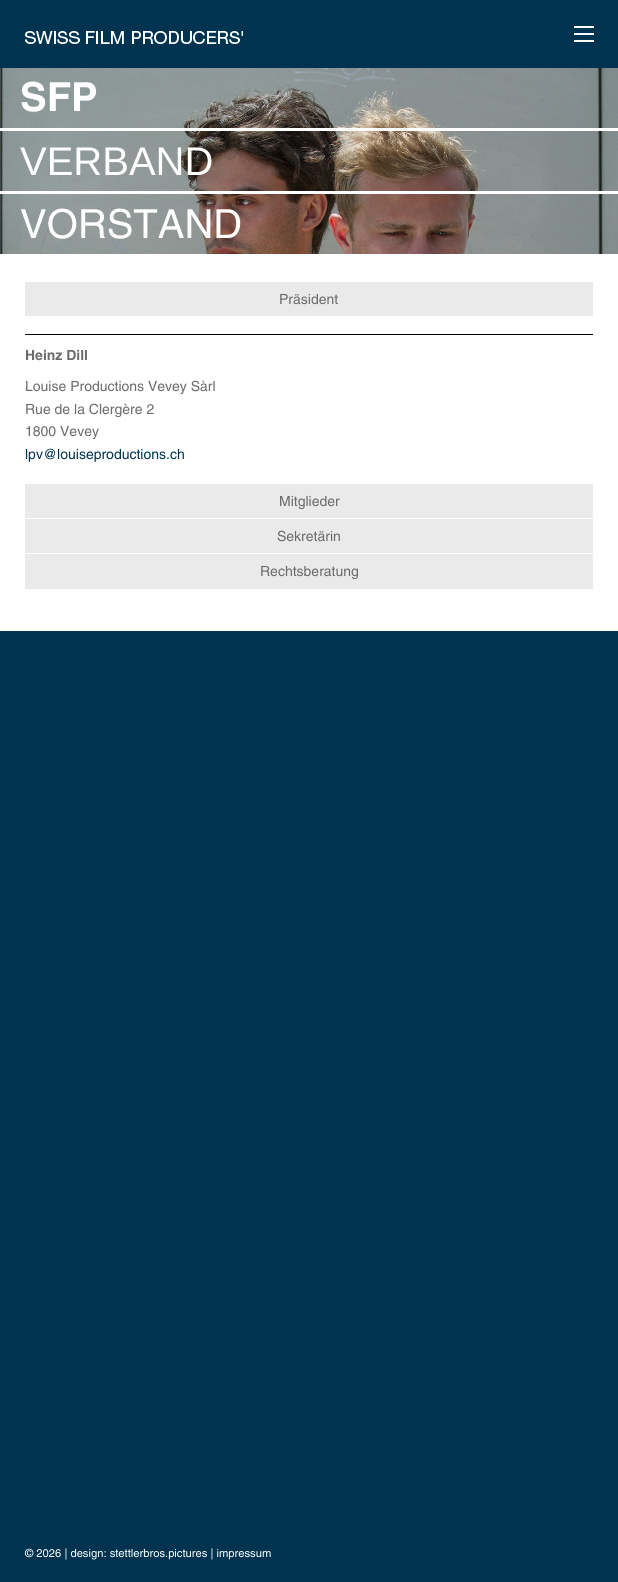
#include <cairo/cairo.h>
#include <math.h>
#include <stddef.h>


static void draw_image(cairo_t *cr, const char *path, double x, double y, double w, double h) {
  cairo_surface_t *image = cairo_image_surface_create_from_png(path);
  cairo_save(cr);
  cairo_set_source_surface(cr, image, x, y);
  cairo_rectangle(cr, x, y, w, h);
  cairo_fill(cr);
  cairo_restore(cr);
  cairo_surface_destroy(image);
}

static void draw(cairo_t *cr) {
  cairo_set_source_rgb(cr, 0, 51 / 255.0, 80 / 255.0);
  cairo_paint(cr);
  draw_image(cr, "images/1.png", 25, 31, 218, 13);
  cairo_set_source_rgb(cr, 254 / 255.0, 254 / 255.0, 254 / 255.0);
  cairo_rectangle(cr, 574, 40, 20, 2);
  cairo_fill(cr);
  cairo_rectangle(cr, 574, 33, 20, 2);
  cairo_fill(cr);
  cairo_rectangle(cr, 574, 26, 20, 2);
  cairo_fill(cr);
  draw_image(cr, "images/2.png", 0, 68, 618, 186);
  cairo_set_source_rgb(cr, 1, 1, 1);
  cairo_rectangle(cr, 0, 128, 618, 3);
  cairo_fill(cr);
  cairo_rectangle(cr, 0, 191, 618, 3);
  cairo_fill(cr);
  cairo_rectangle(cr, 0, 254, 618, 377);
  cairo_fill(cr);
  cairo_set_source_rgb(cr, 234 / 255.0, 234 / 255.0, 234 / 255.0);
  cairo_rectangle(cr, 25, 282, 568, 34);
  cairo_fill(cr);
  cairo_set_source_rgb(cr, 0, 0, 0);
  cairo_rectangle(cr, 25, 334, 568, 1);
  cairo_fill(cr);
  cairo_set_source_rgb(cr, 234 / 255.0, 234 / 255.0, 234 / 255.0);
  cairo_rectangle(cr, 25, 484, 568, 34);
  cairo_fill(cr);
  cairo_rectangle(cr, 25, 519, 568, 34);
  cairo_fill(cr);
  cairo_rectangle(cr, 25, 554, 568, 34);
  cairo_fill(cr);
  cairo_set_source_rgb(cr, 230 / 255.0, 230 / 255.0, 230 / 255.0);
  cairo_rectangle(cr, 25, 588, 568, 1);
  cairo_fill(cr);
  cairo_select_font_face(cr, "Helvetica", CAIRO_FONT_SLANT_NORMAL, CAIRO_FONT_WEIGHT_BOLD);
  cairo_set_font_size(cr, 40);
  cairo_set_source_rgb(cr, 1, 1, 1);
  cairo_move_to(cr, 20, 111);
  cairo_show_text(cr, "SFP");
  cairo_select_font_face(cr, "Liberation Sans", CAIRO_FONT_SLANT_NORMAL, CAIRO_FONT_WEIGHT_NORMAL);
  cairo_move_to(cr, 20, 175);
  cairo_show_text(cr, "VERBAND");
  cairo_select_font_face(cr, "Helvetica", CAIRO_FONT_SLANT_NORMAL, CAIRO_FONT_WEIGHT_NORMAL);
  cairo_move_to(cr, 20, 238);
  cairo_show_text(cr, "VORSTAND");
  cairo_set_font_size(cr, 14);
  cairo_set_source_rgb(cr, 107 / 255.0, 107 / 255.0, 107 / 255.0);
  cairo_move_to(cr, 279, 304);
  cairo_show_text(cr, "Präsident");
  cairo_select_font_face(cr, "Helvetica", CAIRO_FONT_SLANT_NORMAL, CAIRO_FONT_WEIGHT_BOLD);
  cairo_move_to(cr, 25, 360);
  cairo_show_text(cr, "Heinz Dill");
  cairo_select_font_face(cr, "Helvetica", CAIRO_FONT_SLANT_NORMAL, CAIRO_FONT_WEIGHT_NORMAL);
  cairo_move_to(cr, 25, 391);
  cairo_show_text(cr, "Louise Productions Vevey Sàrl");
  cairo_move_to(cr, 25, 414);
  cairo_show_text(cr, "Rue de la Clergère 2");
  cairo_move_to(cr, 25, 436);
  cairo_show_text(cr, "1800 Vevey");
  cairo_set_source_rgb(cr, 0, 51 / 255.0, 80 / 255.0);
  cairo_move_to(cr, 25, 459);
  cairo_show_text(cr, "lpv@louiseproductions.ch");
  cairo_set_source_rgb(cr, 107 / 255.0, 107 / 255.0, 107 / 255.0);
  cairo_move_to(cr, 279, 506);
  cairo_show_text(cr, "Mitglieder");
  cairo_move_to(cr, 277, 541);
  cairo_show_text(cr, "Sekretärin");
  cairo_move_to(cr, 260, 576);
  cairo_show_text(cr, "Rechtsberatung");
  cairo_set_font_size(cr, 11.2);
  cairo_set_source_rgb(cr, 1, 1, 1);
  cairo_move_to(cr, 25, 1557);
  cairo_show_text(cr, "© 2026 | design: stettlerbros.pictures | impressum");
}

int main(void) {
  cairo_surface_t *surface = cairo_image_surface_create(CAIRO_FORMAT_RGB24, 618, 1582);
  cairo_t *cr = cairo_create(surface);
  cairo_font_options_t *options = cairo_font_options_create();
  cairo_font_options_set_hint_metrics(options, CAIRO_HINT_METRICS_OFF);
  cairo_font_options_set_hint_style(options, CAIRO_HINT_STYLE_NONE);
  cairo_set_font_options(cr, options);
  cairo_set_miter_limit(cr, 4);
  draw(cr);
  cairo_surface_write_to_png(surface, "out.png");
  cairo_font_options_destroy(options);
  cairo_destroy(cr);
  cairo_surface_destroy(surface);
  return 0;
}
